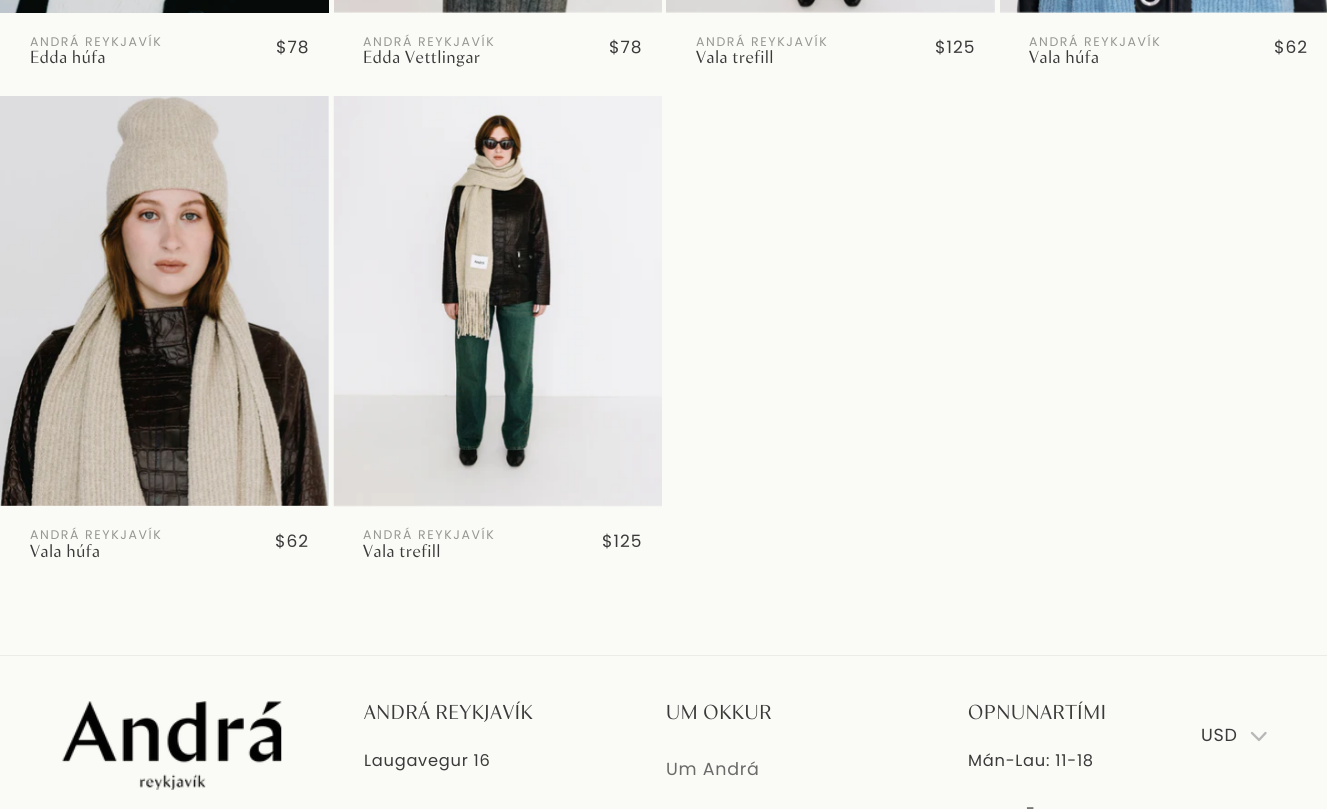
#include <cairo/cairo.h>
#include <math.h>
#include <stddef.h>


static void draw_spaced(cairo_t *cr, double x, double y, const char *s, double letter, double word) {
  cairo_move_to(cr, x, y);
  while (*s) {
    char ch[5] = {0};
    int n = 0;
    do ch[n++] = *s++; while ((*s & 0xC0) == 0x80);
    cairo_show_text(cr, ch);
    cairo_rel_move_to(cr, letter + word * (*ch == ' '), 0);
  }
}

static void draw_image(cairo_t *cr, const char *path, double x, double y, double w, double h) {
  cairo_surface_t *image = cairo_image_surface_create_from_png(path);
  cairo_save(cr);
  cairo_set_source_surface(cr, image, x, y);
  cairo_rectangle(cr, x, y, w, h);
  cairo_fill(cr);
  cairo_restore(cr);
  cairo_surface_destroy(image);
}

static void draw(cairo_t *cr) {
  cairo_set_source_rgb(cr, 250 / 255.0, 250 / 255.0, 246 / 255.0);
  cairo_paint(cr);
  draw_image(cr, "images/1.png", 0, 0, 329, 13);
  draw_image(cr, "images/2.png", 334, 0, 328, 13);
  draw_image(cr, "images/3.png", 666, 0, 329, 13);
  draw_image(cr, "images/4.png", 1000, 0, 327, 13);
  draw_image(cr, "images/5.png", 0, 96, 329, 410);
  draw_image(cr, "images/6.png", 333, 96, 329, 411);
  cairo_set_source_rgb(cr, 235 / 255.0, 235 / 255.0, 231 / 255.0);
  cairo_rectangle(cr, 0, 655, 1327, 1);
  cairo_fill(cr);
  draw_image(cr, "images/7.png", 62, 701, 220, 89);
  cairo_new_path(cr);
  cairo_move_to(cr, 1252, 733);
  cairo_line_to(cr, 1259, 740);
  cairo_line_to(cr, 1265.5, 733);
  cairo_set_source_rgb(cr, 183 / 255.0, 183 / 255.0, 183 / 255.0);
  cairo_set_line_width(cr, 2.3);
  cairo_set_line_cap(cr, CAIRO_LINE_CAP_ROUND);
  cairo_set_line_join(cr, CAIRO_LINE_JOIN_ROUND);
  cairo_stroke(cr);
  cairo_select_font_face(cr, "Poppins", CAIRO_FONT_SLANT_NORMAL, CAIRO_FONT_WEIGHT_NORMAL);
  cairo_set_font_size(cr, 12.5);
  cairo_set_source_rgb(cr, 150 / 255.0, 150 / 255.0, 147 / 255.0);
  draw_spaced(cr, 30, 46, "ANDRÁ REYKJAVÍK", 1.6, 0);
  cairo_select_font_face(cr, "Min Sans", CAIRO_FONT_SLANT_NORMAL, CAIRO_FONT_WEIGHT_NORMAL);
  cairo_set_font_size(cr, 16.25);
  cairo_set_source_rgb(cr, 58 / 255.0, 58 / 255.0, 58 / 255.0);
  draw_spaced(cr, 30, 63, "Edda húfa", 0.75, 0);
  cairo_select_font_face(cr, "Poppins", CAIRO_FONT_SLANT_NORMAL, CAIRO_FONT_WEIGHT_NORMAL);
  cairo_set_font_size(cr, 17);
  draw_spaced(cr, 276, 53, "$78", 1, 0);
  cairo_set_font_size(cr, 12.5);
  cairo_set_source_rgb(cr, 150 / 255.0, 150 / 255.0, 147 / 255.0);
  draw_spaced(cr, 363, 46, "ANDRÁ REYKJAVÍK", 1.6, 0);
  cairo_select_font_face(cr, "Min Sans", CAIRO_FONT_SLANT_NORMAL, CAIRO_FONT_WEIGHT_NORMAL);
  cairo_set_font_size(cr, 16.25);
  cairo_set_source_rgb(cr, 58 / 255.0, 58 / 255.0, 58 / 255.0);
  draw_spaced(cr, 363, 63, "Edda Vettlingar", 0.75, 0);
  cairo_select_font_face(cr, "Poppins", CAIRO_FONT_SLANT_NORMAL, CAIRO_FONT_WEIGHT_NORMAL);
  cairo_set_font_size(cr, 17);
  draw_spaced(cr, 609, 53, "$78", 1, 0);
  cairo_set_font_size(cr, 12.5);
  cairo_set_source_rgb(cr, 150 / 255.0, 150 / 255.0, 147 / 255.0);
  draw_spaced(cr, 696, 46, "ANDRÁ REYKJAVÍK", 1.6, 0);
  cairo_select_font_face(cr, "Min Sans", CAIRO_FONT_SLANT_NORMAL, CAIRO_FONT_WEIGHT_NORMAL);
  cairo_set_font_size(cr, 16.25);
  cairo_set_source_rgb(cr, 58 / 255.0, 58 / 255.0, 58 / 255.0);
  draw_spaced(cr, 696, 63, "Vala trefill", 0.75, 0);
  cairo_select_font_face(cr, "Poppins", CAIRO_FONT_SLANT_NORMAL, CAIRO_FONT_WEIGHT_NORMAL);
  cairo_set_font_size(cr, 17);
  draw_spaced(cr, 935, 53, "$125", 1, 0);
  cairo_set_font_size(cr, 12.5);
  cairo_set_source_rgb(cr, 150 / 255.0, 150 / 255.0, 147 / 255.0);
  draw_spaced(cr, 1029, 46, "ANDRÁ REYKJAVÍK", 1.6, 0);
  cairo_select_font_face(cr, "Min Sans", CAIRO_FONT_SLANT_NORMAL, CAIRO_FONT_WEIGHT_NORMAL);
  cairo_set_font_size(cr, 16.25);
  cairo_set_source_rgb(cr, 58 / 255.0, 58 / 255.0, 58 / 255.0);
  draw_spaced(cr, 1029, 63, "Vala húfa", 0.75, 0);
  cairo_select_font_face(cr, "Poppins", CAIRO_FONT_SLANT_NORMAL, CAIRO_FONT_WEIGHT_NORMAL);
  cairo_set_font_size(cr, 17);
  draw_spaced(cr, 1274, 53, "$62", 1, 0);
  cairo_set_font_size(cr, 12.5);
  cairo_set_source_rgb(cr, 150 / 255.0, 150 / 255.0, 147 / 255.0);
  draw_spaced(cr, 30, 539, "ANDRÁ REYKJAVÍK", 1.6, 0);
  cairo_select_font_face(cr, "Min Sans", CAIRO_FONT_SLANT_NORMAL, CAIRO_FONT_WEIGHT_NORMAL);
  cairo_set_font_size(cr, 16.25);
  cairo_set_source_rgb(cr, 58 / 255.0, 58 / 255.0, 58 / 255.0);
  draw_spaced(cr, 30, 557, "Vala húfa", 0.75, 0);
  cairo_select_font_face(cr, "Poppins", CAIRO_FONT_SLANT_NORMAL, CAIRO_FONT_WEIGHT_NORMAL);
  cairo_set_font_size(cr, 17);
  draw_spaced(cr, 275, 547, "$62", 1, 0);
  cairo_set_font_size(cr, 12.5);
  cairo_set_source_rgb(cr, 150 / 255.0, 150 / 255.0, 147 / 255.0);
  draw_spaced(cr, 363, 539, "ANDRÁ REYKJAVÍK", 1.6, 0);
  cairo_select_font_face(cr, "Min Sans", CAIRO_FONT_SLANT_NORMAL, CAIRO_FONT_WEIGHT_NORMAL);
  cairo_set_font_size(cr, 16.25);
  cairo_set_source_rgb(cr, 58 / 255.0, 58 / 255.0, 58 / 255.0);
  draw_spaced(cr, 363, 557, "Vala trefill", 0.75, 0);
  cairo_select_font_face(cr, "Poppins", CAIRO_FONT_SLANT_NORMAL, CAIRO_FONT_WEIGHT_NORMAL);
  cairo_set_font_size(cr, 17);
  draw_spaced(cr, 602, 547, "$125", 1, 0);
  cairo_select_font_face(cr, "Min Sans", CAIRO_FONT_SLANT_NORMAL, CAIRO_FONT_WEIGHT_NORMAL);
  cairo_set_font_size(cr, 18.75);
  draw_spaced(cr, 364, 719, "ANDRÁ REYKJAVÍK", 0.75, 0);
  cairo_select_font_face(cr, "Poppins", CAIRO_FONT_SLANT_NORMAL, CAIRO_FONT_WEIGHT_NORMAL);
  cairo_set_font_size(cr, 16.25);
  draw_spaced(cr, 364, 766, "Laugavegur 16", 0.75, 0);
  cairo_select_font_face(cr, "Min Sans", CAIRO_FONT_SLANT_NORMAL, CAIRO_FONT_WEIGHT_NORMAL);
  cairo_set_font_size(cr, 18.75);
  draw_spaced(cr, 666, 719, "UM OKKUR", 0.75, 0);
  cairo_select_font_face(cr, "Poppins", CAIRO_FONT_SLANT_NORMAL, CAIRO_FONT_WEIGHT_NORMAL);
  cairo_set_font_size(cr, 17.5);
  cairo_set_source_rgb(cr, 106 / 255.0, 106 / 255.0, 105 / 255.0);
  draw_spaced(cr, 666, 775, "Um Andrá", 0.75, 0);
  cairo_select_font_face(cr, "Min Sans", CAIRO_FONT_SLANT_NORMAL, CAIRO_FONT_WEIGHT_NORMAL);
  cairo_set_font_size(cr, 18.75);
  cairo_set_source_rgb(cr, 58 / 255.0, 58 / 255.0, 58 / 255.0);
  draw_spaced(cr, 968, 719, "OPNUNARTÍMI", 0.75, 0);
  cairo_select_font_face(cr, "Poppins", CAIRO_FONT_SLANT_NORMAL, CAIRO_FONT_WEIGHT_NORMAL);
  cairo_set_font_size(cr, 16.25);
  draw_spaced(cr, 968, 766, "Mán-Lau: 11-18", 0.75, 0);
  draw_spaced(cr, 1026, 814, "-", 0.75, 0);
  cairo_set_font_size(cr, 17.5);
  draw_spaced(cr, 1201, 741, "USD", 0.75, 0);
}

int main(void) {
  cairo_surface_t *surface = cairo_image_surface_create(CAIRO_FORMAT_RGB24, 1327, 809);
  cairo_t *cr = cairo_create(surface);
  cairo_font_options_t *options = cairo_font_options_create();
  cairo_font_options_set_hint_metrics(options, CAIRO_HINT_METRICS_OFF);
  cairo_font_options_set_hint_style(options, CAIRO_HINT_STYLE_NONE);
  cairo_set_font_options(cr, options);
  cairo_set_miter_limit(cr, 4);
  draw(cr);
  cairo_surface_write_to_png(surface, "out.png");
  cairo_font_options_destroy(options);
  cairo_destroy(cr);
  cairo_surface_destroy(surface);
  return 0;
}
